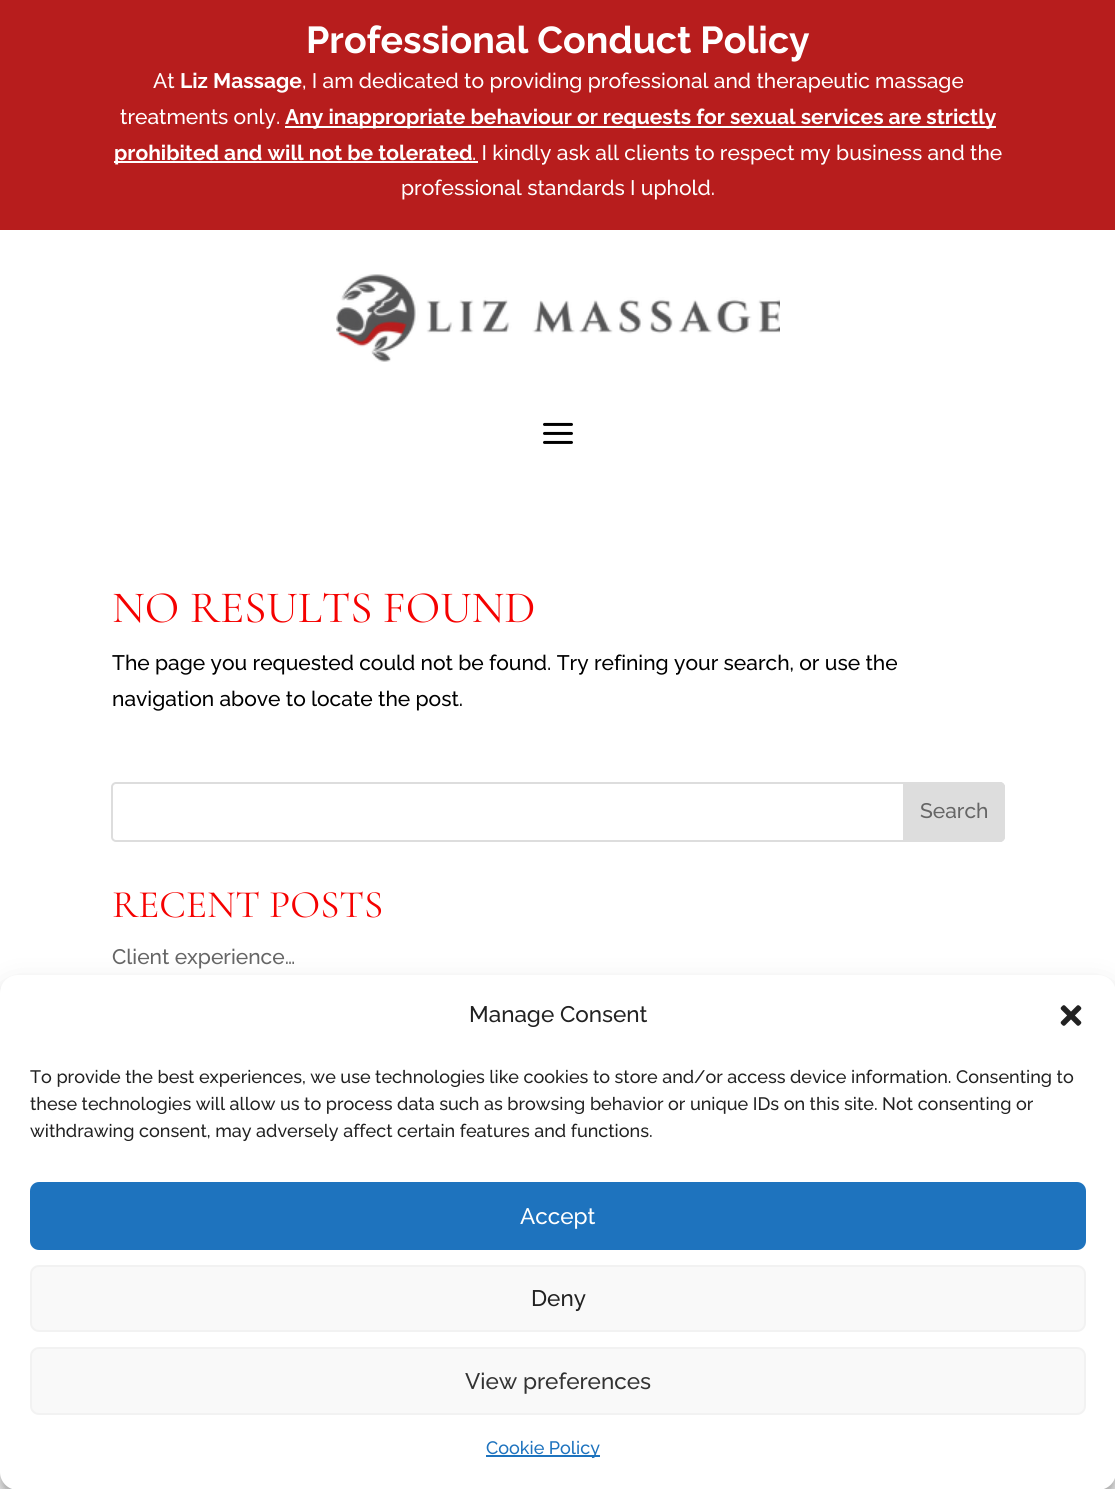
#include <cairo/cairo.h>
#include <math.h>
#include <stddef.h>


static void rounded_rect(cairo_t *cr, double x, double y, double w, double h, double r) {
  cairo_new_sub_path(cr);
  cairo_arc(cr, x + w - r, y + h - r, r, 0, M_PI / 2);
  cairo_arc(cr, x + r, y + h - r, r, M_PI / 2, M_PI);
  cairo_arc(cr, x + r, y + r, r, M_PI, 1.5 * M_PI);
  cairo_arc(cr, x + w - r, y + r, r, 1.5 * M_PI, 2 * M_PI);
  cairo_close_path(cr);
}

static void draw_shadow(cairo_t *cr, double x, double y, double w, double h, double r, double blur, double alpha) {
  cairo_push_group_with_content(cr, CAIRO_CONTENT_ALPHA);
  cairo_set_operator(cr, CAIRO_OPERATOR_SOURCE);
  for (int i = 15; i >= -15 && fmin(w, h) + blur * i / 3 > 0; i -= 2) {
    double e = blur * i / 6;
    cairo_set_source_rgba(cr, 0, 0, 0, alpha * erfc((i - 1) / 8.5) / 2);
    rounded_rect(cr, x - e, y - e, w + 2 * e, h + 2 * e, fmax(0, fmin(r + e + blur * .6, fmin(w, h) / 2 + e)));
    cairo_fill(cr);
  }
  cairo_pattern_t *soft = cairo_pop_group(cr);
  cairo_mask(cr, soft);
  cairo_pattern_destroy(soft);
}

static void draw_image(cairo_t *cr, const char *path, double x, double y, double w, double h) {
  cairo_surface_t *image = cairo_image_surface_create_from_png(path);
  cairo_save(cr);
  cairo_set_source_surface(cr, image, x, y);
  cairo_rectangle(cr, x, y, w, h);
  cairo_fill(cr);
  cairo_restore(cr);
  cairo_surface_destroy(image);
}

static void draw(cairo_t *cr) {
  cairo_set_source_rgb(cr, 1, 1, 1);
  cairo_paint(cr);
  cairo_set_source_rgb(cr, 183 / 255.0, 29 / 255.0, 29 / 255.0);
  cairo_rectangle(cr, 0, 0, 1115, 230);
  cairo_fill(cr);
  cairo_set_source_rgb(cr, 1, 1, 1);
  cairo_rectangle(cr, 285, 126, 711, 2);
  cairo_fill(cr);
  cairo_rectangle(cr, 114, 161, 364, 2);
  cairo_fill(cr);
  draw_image(cr, "images/1.png", 336, 274, 444, 88);
  draw_image(cr, "images/2.png", 543, 422, 30, 22);
  rounded_rect(cr, 112, 783, 892, 58, 4);
  cairo_set_source_rgb(cr, 221 / 255.0, 221 / 255.0, 221 / 255.0);
  cairo_stroke(cr);
  cairo_new_path(cr);
  cairo_move_to(cr, 904, 783);
  cairo_line_to(cr, 1000, 783);
  cairo_curve_to(cr, 1002, 783, 1004, 785, 1004, 787);
  cairo_line_to(cr, 1004, 837);
  cairo_curve_to(cr, 1004, 839, 1002, 841, 1000, 841);
  cairo_line_to(cr, 904, 841);
  cairo_close_path(cr);
  cairo_fill_preserve(cr);
  cairo_stroke(cr);
  cairo_set_source_rgb(cr, 0, 0, 0);
  draw_shadow(cr, 0, 984, 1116, 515, 18, 4.5, 0.23);
  draw_shadow(cr, 0, 990, 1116, 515, 18, 15, 0.19);
  cairo_set_source_rgb(cr, 1, 1, 1);
  rounded_rect(cr, 0, 975, 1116, 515, 18);
  cairo_fill(cr);
  draw_image(cr, "images/3.png", 1060, 1005, 22, 21);
  cairo_set_source_rgb(cr, 30 / 255.0, 115 / 255.0, 190 / 255.0);
  rounded_rect(cr, 31, 1183, 1054, 66, 8);
  cairo_fill_preserve(cr);
  cairo_stroke(cr);
  cairo_set_source_rgb(cr, 249 / 255.0, 249 / 255.0, 249 / 255.0);
  rounded_rect(cr, 31, 1266, 1054, 65, 8);
  cairo_fill_preserve(cr);
  cairo_set_source_rgb(cr, 242 / 255.0, 242 / 255.0, 242 / 255.0);
  cairo_stroke(cr);
  cairo_set_source_rgb(cr, 249 / 255.0, 249 / 255.0, 249 / 255.0);
  rounded_rect(cr, 31, 1348, 1054, 66, 8);
  cairo_fill_preserve(cr);
  cairo_set_source_rgb(cr, 242 / 255.0, 242 / 255.0, 242 / 255.0);
  cairo_stroke(cr);
  cairo_set_source_rgb(cr, 30 / 255.0, 115 / 255.0, 190 / 255.0);
  cairo_rectangle(cr, 486, 1455, 114, 2);
  cairo_fill(cr);
  cairo_select_font_face(cr, "Raleway", CAIRO_FONT_SLANT_NORMAL, CAIRO_FONT_WEIGHT_BOLD);
  cairo_set_font_size(cr, 37.5);
  cairo_set_source_rgb(cr, 1, 1, 1);
  cairo_move_to(cr, 306, 53);
  cairo_show_text(cr, "Professional Conduct Policy");
  cairo_select_font_face(cr, "Raleway Medium", CAIRO_FONT_SLANT_NORMAL, CAIRO_FONT_WEIGHT_NORMAL);
  cairo_set_font_size(cr, 21);
  cairo_move_to(cr, 153, 88);
  cairo_show_text(cr, "At");
  cairo_select_font_face(cr, "Raleway", CAIRO_FONT_SLANT_NORMAL, CAIRO_FONT_WEIGHT_BOLD);
  cairo_move_to(cr, 180, 88);
  cairo_show_text(cr, "Liz Massage");
  cairo_select_font_face(cr, "Raleway Medium", CAIRO_FONT_SLANT_NORMAL, CAIRO_FONT_WEIGHT_NORMAL);
  cairo_move_to(cr, 302, 88);
  cairo_show_text(cr, ", I am dedicated to providing professional and therapeutic massage");
  cairo_move_to(cr, 120, 124);
  cairo_show_text(cr, "treatments only.");
  cairo_select_font_face(cr, "Raleway", CAIRO_FONT_SLANT_NORMAL, CAIRO_FONT_WEIGHT_BOLD);
  cairo_move_to(cr, 285, 124);
  cairo_show_text(cr, "Any inappropriate behaviour or requests for sexual services are strictly");
  cairo_move_to(cr, 114, 160);
  cairo_show_text(cr, "prohibited and will not be tolerated");
  cairo_select_font_face(cr, "Raleway Medium", CAIRO_FONT_SLANT_NORMAL, CAIRO_FONT_WEIGHT_NORMAL);
  cairo_move_to(cr, 472, 160);
  cairo_show_text(cr, ". I kindly ask all clients to respect my business and the");
  cairo_move_to(cr, 401, 195);
  cairo_show_text(cr, "professional standards I uphold.");
  cairo_select_font_face(cr, "Cormorant Garamond", CAIRO_FONT_SLANT_NORMAL, CAIRO_FONT_WEIGHT_NORMAL);
  cairo_set_font_size(cr, 45);
  cairo_set_source_rgb(cr, 245 / 255.0, 1 / 255.0, 0);
  cairo_move_to(cr, 112, 622);
  cairo_show_text(cr, "NO RESULTS FOUND");
  cairo_select_font_face(cr, "Raleway Medium", CAIRO_FONT_SLANT_NORMAL, CAIRO_FONT_WEIGHT_NORMAL);
  cairo_set_font_size(cr, 21);
  cairo_set_source_rgb(cr, 0, 0, 0);
  cairo_move_to(cr, 112, 670);
  cairo_show_text(cr, "The page you requested could not be found. Try refining your search, or use the");
  cairo_move_to(cr, 112, 706);
  cairo_show_text(cr, "navigation above to locate the post.");
  cairo_set_source_rgb(cr, 102 / 255.0, 102 / 255.0, 102 / 255.0);
  cairo_move_to(cr, 920, 818);
  cairo_show_text(cr, "Search");
  cairo_select_font_face(cr, "Cormorant Garamond", CAIRO_FONT_SLANT_NORMAL, CAIRO_FONT_WEIGHT_NORMAL);
  cairo_set_font_size(cr, 39);
  cairo_set_source_rgb(cr, 245 / 255.0, 1 / 255.0, 0);
  cairo_move_to(cr, 112, 917);
  cairo_show_text(cr, "RECENT POSTS");
  cairo_select_font_face(cr, "Raleway Medium", CAIRO_FONT_SLANT_NORMAL, CAIRO_FONT_WEIGHT_NORMAL);
  cairo_set_font_size(cr, 21);
  cairo_set_source_rgb(cr, 102 / 255.0, 102 / 255.0, 102 / 255.0);
  cairo_move_to(cr, 112, 964);
  cairo_show_text(cr, "Client experience…");
  cairo_set_font_size(cr, 22.5);
  cairo_set_source_rgb(cr, 34 / 255.0, 34 / 255.0, 34 / 255.0);
  cairo_move_to(cr, 469, 1022);
  cairo_show_text(cr, "Manage Consent");
  cairo_set_font_size(cr, 18);
  cairo_move_to(cr, 30, 1083);
  cairo_show_text(cr, "To provide the best experiences, we use technologies like cookies to store and/or access device information. Consenting to");
  cairo_move_to(cr, 30, 1110);
  cairo_show_text(cr, "these technologies will allow us to process data such as browsing behavior or unique IDs on this site. Not consenting or");
  cairo_move_to(cr, 30, 1137);
  cairo_show_text(cr, "withdrawing consent, may adversely affect certain features and functions.");
  cairo_set_font_size(cr, 22.5);
  cairo_set_source_rgb(cr, 1, 1, 1);
  cairo_move_to(cr, 520, 1224);
  cairo_show_text(cr, "Accept");
  cairo_set_source_rgb(cr, 34 / 255.0, 34 / 255.0, 34 / 255.0);
  cairo_move_to(cr, 531, 1306);
  cairo_show_text(cr, "Deny");
  cairo_set_source_rgb(cr, 51 / 255.0, 51 / 255.0, 51 / 255.0);
  cairo_move_to(cr, 465, 1389);
  cairo_show_text(cr, "View preferences");
  cairo_set_font_size(cr, 18);
  cairo_set_source_rgb(cr, 30 / 255.0, 115 / 255.0, 190 / 255.0);
  cairo_move_to(cr, 486, 1454);
  cairo_show_text(cr, "Cookie Policy");
}

int main(void) {
  cairo_surface_t *surface = cairo_image_surface_create(CAIRO_FORMAT_RGB24, 1115, 1489);
  cairo_t *cr = cairo_create(surface);
  cairo_font_options_t *options = cairo_font_options_create();
  cairo_font_options_set_hint_metrics(options, CAIRO_HINT_METRICS_OFF);
  cairo_font_options_set_hint_style(options, CAIRO_HINT_STYLE_NONE);
  cairo_set_font_options(cr, options);
  cairo_set_miter_limit(cr, 4);
  draw(cr);
  cairo_surface_write_to_png(surface, "out.png");
  cairo_font_options_destroy(options);
  cairo_destroy(cr);
  cairo_surface_destroy(surface);
  return 0;
}
